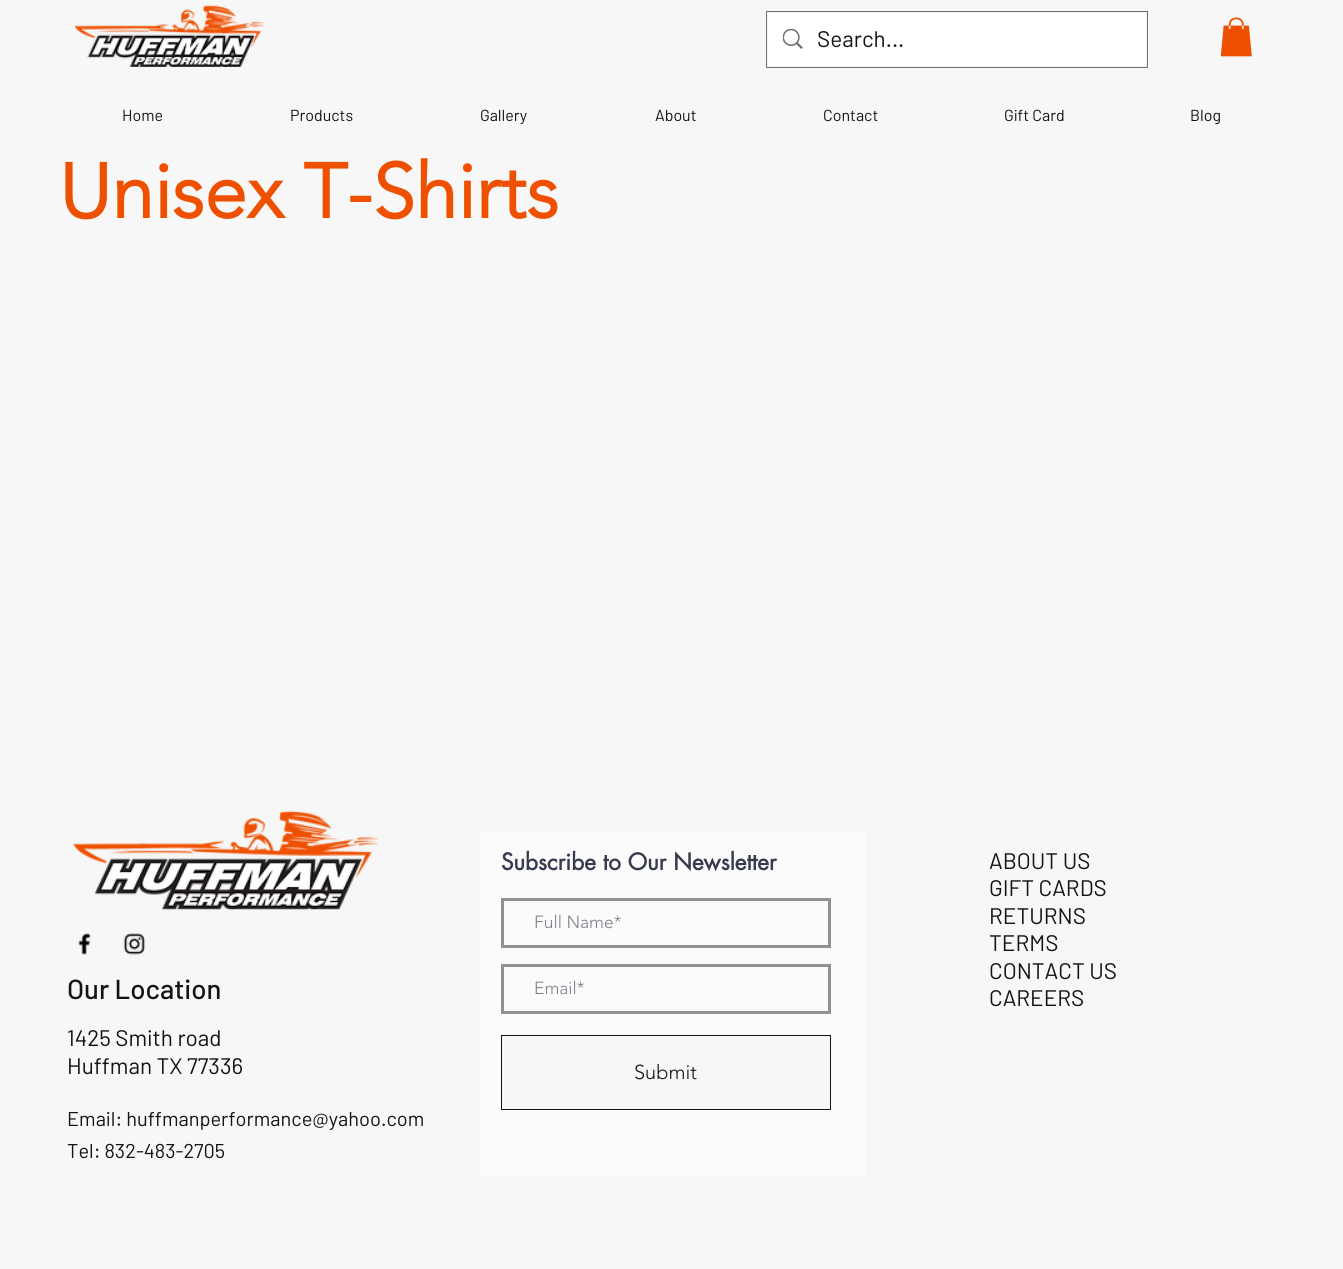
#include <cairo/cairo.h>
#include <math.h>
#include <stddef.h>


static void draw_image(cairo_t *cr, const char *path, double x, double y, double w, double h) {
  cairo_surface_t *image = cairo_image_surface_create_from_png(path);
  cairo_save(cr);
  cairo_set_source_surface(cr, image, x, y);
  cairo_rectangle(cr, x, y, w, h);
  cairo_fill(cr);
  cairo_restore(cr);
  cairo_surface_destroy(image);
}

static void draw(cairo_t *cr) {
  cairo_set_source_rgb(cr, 247 / 255.0, 247 / 255.0, 247 / 255.0);
  cairo_paint(cr);
  draw_image(cr, "images/1.png", 74, 5, 191, 62);
  cairo_rectangle(cr, 766.5, 11.5, 381, 56);
  cairo_set_source_rgb(cr, 111 / 255.0, 111 / 255.0, 111 / 255.0);
  cairo_set_line_width(cr, 1);
  cairo_stroke(cr);
  cairo_set_source_rgb(cr, 1, 1, 1);
  cairo_rectangle(cr, 768, 13, 378, 53);
  cairo_fill(cr);
  draw_image(cr, "images/2.png", 783, 29, 20, 20);
  draw_image(cr, "images/3.png", 1220, 17, 32, 40);
  draw_image(cr, "images/4.png", 78, 933, 13, 22);
  draw_image(cr, "images/5.png", 123, 933, 23, 22);
  cairo_set_source_rgb(cr, 251 / 255.0, 251 / 255.0, 251 / 255.0);
  cairo_rectangle(cr, 479, 831, 387, 345);
  cairo_fill(cr);
  cairo_rectangle(cr, 502.5, 899.5, 327, 47);
  cairo_set_source_rgb(cr, 145 / 255.0, 145 / 255.0, 145 / 255.0);
  cairo_set_line_width(cr, 3);
  cairo_stroke(cr);
  cairo_rectangle(cr, 502.5, 965.5, 327, 47);
  cairo_stroke(cr);
  cairo_set_source_rgb(cr, 247 / 255.0, 247 / 255.0, 247 / 255.0);
  cairo_rectangle(cr, 501.5, 1035.5, 329, 74);
  cairo_fill_preserve(cr);
  cairo_set_source_rgb(cr, 20 / 255.0, 20 / 255.0, 20 / 255.0);
  cairo_set_line_width(cr, 1);
  cairo_stroke(cr);
  draw_image(cr, "images/6.png", 72, 810, 307, 100);
  cairo_select_font_face(cr, "Barlow", CAIRO_FONT_SLANT_NORMAL, CAIRO_FONT_WEIGHT_NORMAL);
  cairo_set_font_size(cr, 22.5);
  cairo_move_to(cr, 817, 47);
  cairo_show_text(cr, "Search...");
  cairo_set_font_size(cr, 16);
  cairo_move_to(cr, 122, 121);
  cairo_show_text(cr, "Home");
  cairo_move_to(cr, 290, 121);
  cairo_show_text(cr, "Products");
  cairo_move_to(cr, 480, 121);
  cairo_show_text(cr, "Gallery");
  cairo_move_to(cr, 655, 121);
  cairo_show_text(cr, "About");
  cairo_move_to(cr, 823, 121);
  cairo_show_text(cr, "Contact");
  cairo_move_to(cr, 1004, 121);
  cairo_show_text(cr, "Gift Card");
  cairo_move_to(cr, 1190, 121);
  cairo_show_text(cr, "Blog");
  cairo_select_font_face(cr, "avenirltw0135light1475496", CAIRO_FONT_SLANT_NORMAL, CAIRO_FONT_WEIGHT_BOLD);
  cairo_set_font_size(cr, 76.25);
  cairo_set_source_rgb(cr, 238 / 255.0, 80 / 255.0, 0);
  cairo_move_to(cr, 59, 218);
  cairo_show_text(cr, "Unisex T-Shirts");
  cairo_select_font_face(cr, "futura", CAIRO_FONT_SLANT_NORMAL, CAIRO_FONT_WEIGHT_BOLD);
  cairo_set_font_size(cr, 22.5);
  cairo_set_source_rgb(cr, 55 / 255.0, 59 / 255.0, 77 / 255.0);
  cairo_move_to(cr, 501, 870);
  cairo_show_text(cr, "Subscribe to Our Newsletter");
  cairo_select_font_face(cr, "avenirltw0135light1475496 Light", CAIRO_FONT_SLANT_NORMAL, CAIRO_FONT_WEIGHT_NORMAL);
  cairo_set_font_size(cr, 17.5);
  cairo_set_source_rgb(cr, 127 / 255.0, 128 / 255.0, 138 / 255.0);
  cairo_move_to(cr, 534, 928);
  cairo_show_text(cr, "Full Name*");
  cairo_move_to(cr, 534, 994);
  cairo_show_text(cr, "Email*");
  cairo_set_font_size(cr, 20);
  cairo_set_source_rgb(cr, 20 / 255.0, 20 / 255.0, 20 / 255.0);
  cairo_move_to(cr, 634, 1079);
  cairo_show_text(cr, "Submit");
  cairo_select_font_face(cr, "Barlow", CAIRO_FONT_SLANT_NORMAL, CAIRO_FONT_WEIGHT_NORMAL);
  cairo_set_font_size(cr, 22.5);
  cairo_move_to(cr, 989, 869);
  cairo_show_text(cr, "ABOUT US");
  cairo_move_to(cr, 989, 896);
  cairo_show_text(cr, "GIFT CARDS");
  cairo_move_to(cr, 989, 924);
  cairo_show_text(cr, "RETURNS");
  cairo_move_to(cr, 989, 951);
  cairo_show_text(cr, "TERMS");
  cairo_move_to(cr, 989, 979);
  cairo_show_text(cr, "CONTACT US");
  cairo_move_to(cr, 989, 1006);
  cairo_show_text(cr, "CAREERS");
  cairo_select_font_face(cr, "Barlow Medium", CAIRO_FONT_SLANT_NORMAL, CAIRO_FONT_WEIGHT_NORMAL);
  cairo_set_font_size(cr, 27.5);
  cairo_move_to(cr, 67, 999);
  cairo_show_text(cr, "Our Location");
  cairo_select_font_face(cr, "Barlow", CAIRO_FONT_SLANT_NORMAL, CAIRO_FONT_WEIGHT_NORMAL);
  cairo_set_font_size(cr, 22.5);
  cairo_move_to(cr, 67, 1046);
  cairo_show_text(cr, "1425 Smith road");
  cairo_move_to(cr, 67, 1074);
  cairo_show_text(cr, "Huffman TX 77336");
  cairo_set_font_size(cr, 20);
  cairo_move_to(cr, 67, 1126);
  cairo_show_text(cr, "Email: huffmanperformance@yahoo.com");
  cairo_move_to(cr, 67, 1158);
  cairo_show_text(cr, "Tel: 832-483-2705");
}

int main(void) {
  cairo_surface_t *surface = cairo_image_surface_create(CAIRO_FORMAT_RGB24, 1343, 1269);
  cairo_t *cr = cairo_create(surface);
  cairo_font_options_t *options = cairo_font_options_create();
  cairo_font_options_set_hint_metrics(options, CAIRO_HINT_METRICS_OFF);
  cairo_font_options_set_hint_style(options, CAIRO_HINT_STYLE_NONE);
  cairo_set_font_options(cr, options);
  cairo_set_miter_limit(cr, 4);
  draw(cr);
  cairo_surface_write_to_png(surface, "out.png");
  cairo_font_options_destroy(options);
  cairo_destroy(cr);
  cairo_surface_destroy(surface);
  return 0;
}
